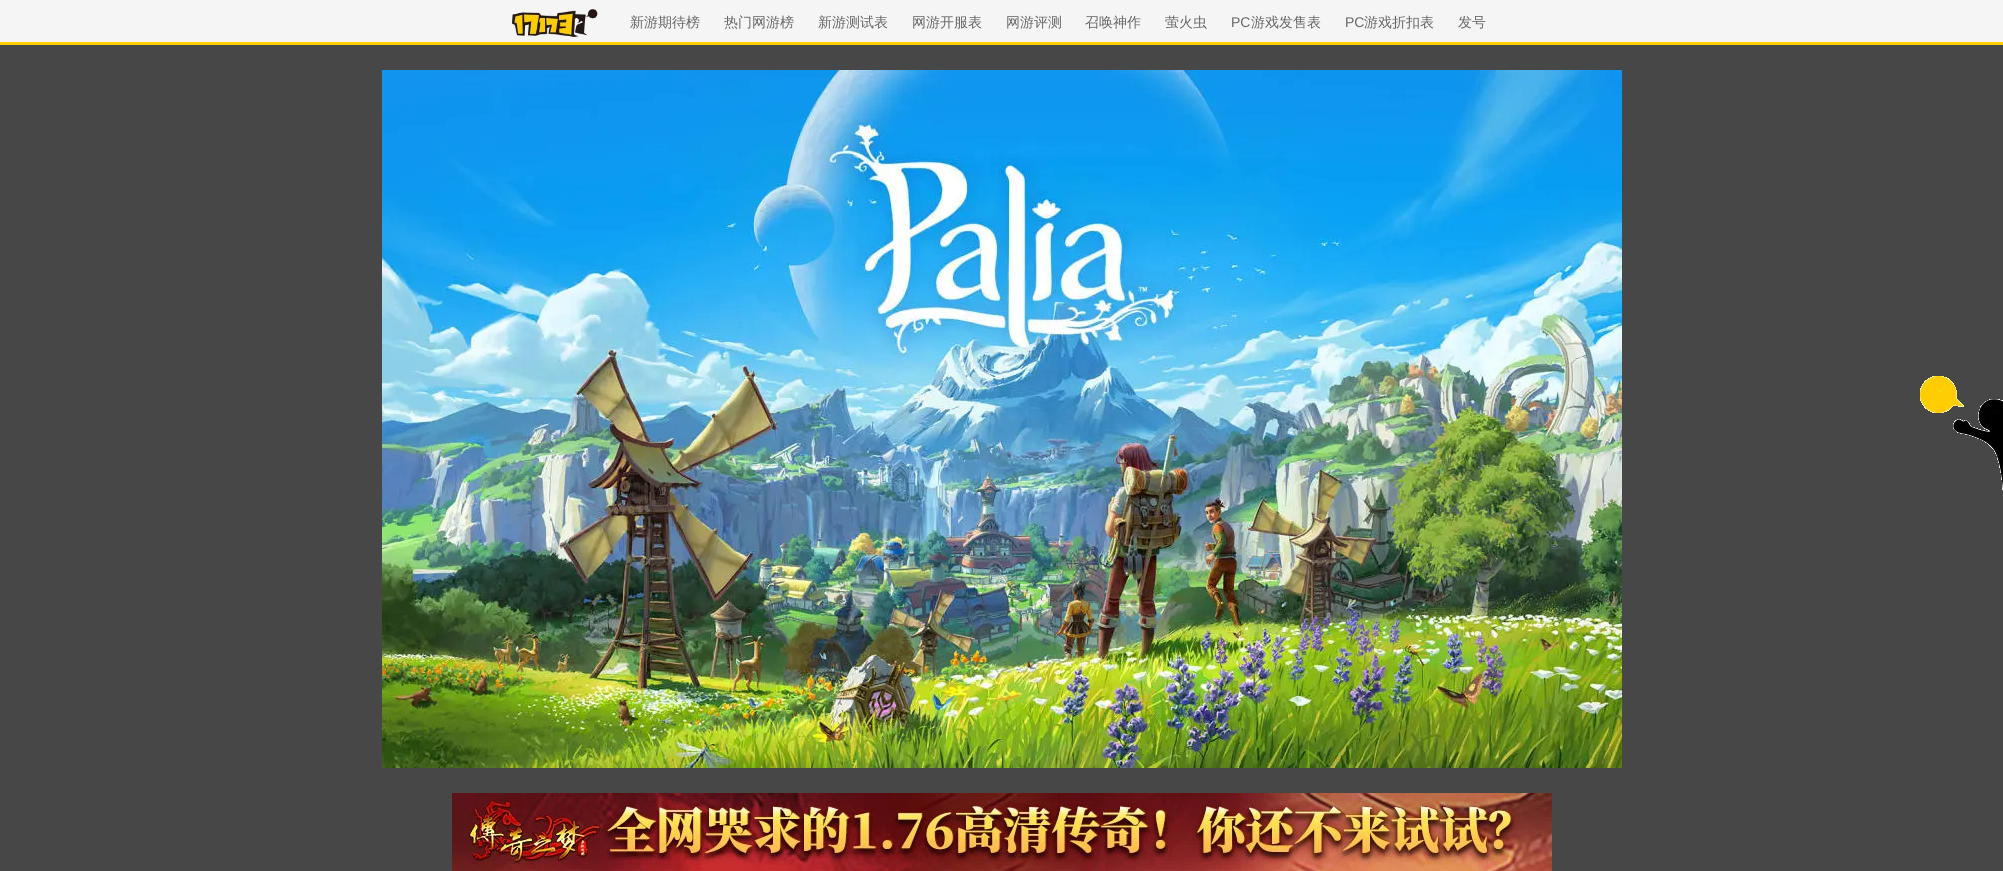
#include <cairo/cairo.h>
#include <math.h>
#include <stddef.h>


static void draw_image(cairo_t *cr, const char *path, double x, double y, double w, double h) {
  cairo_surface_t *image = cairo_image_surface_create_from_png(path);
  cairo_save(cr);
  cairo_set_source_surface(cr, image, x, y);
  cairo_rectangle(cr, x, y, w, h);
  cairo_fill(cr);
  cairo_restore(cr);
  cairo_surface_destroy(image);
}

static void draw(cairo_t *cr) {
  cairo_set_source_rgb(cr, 71 / 255.0, 71 / 255.0, 71 / 255.0);
  cairo_paint(cr);
  cairo_set_source_rgb(cr, 245 / 255.0, 245 / 255.0, 245 / 255.0);
  cairo_rectangle(cr, 0, 0, 2003, 42);
  cairo_fill(cr);
  cairo_set_source_rgb(cr, 1, 205 / 255.0, 0);
  cairo_rectangle(cr, 0, 42, 2003, 3);
  cairo_fill(cr);
  draw_image(cr, "images/1.png", 512, 9, 86, 28);
  draw_image(cr, "images/2.png", 382, 70, 1240, 698);
  draw_image(cr, "images/3.png", 452, 793, 1100, 78);
  draw_image(cr, "images/4.png", 1920, 376, 83, 114);
  cairo_select_font_face(cr, "WenQuanYi Zen Hei Medium", CAIRO_FONT_SLANT_NORMAL, CAIRO_FONT_WEIGHT_NORMAL);
  cairo_set_font_size(cr, 14);
  cairo_set_source_rgb(cr, 102 / 255.0, 102 / 255.0, 102 / 255.0);
  cairo_move_to(cr, 630, 27);
  cairo_show_text(cr, "新游期待榜");
  cairo_move_to(cr, 724, 27);
  cairo_show_text(cr, "热门网游榜");
  cairo_move_to(cr, 818, 27);
  cairo_show_text(cr, "新游测试表");
  cairo_move_to(cr, 912, 27);
  cairo_show_text(cr, "网游开服表");
  cairo_move_to(cr, 1006, 27);
  cairo_show_text(cr, "网游评测");
  cairo_move_to(cr, 1085, 27);
  cairo_show_text(cr, "召唤神作");
  cairo_move_to(cr, 1165, 27);
  cairo_show_text(cr, "萤火虫");
  cairo_select_font_face(cr, "Liberation Sans", CAIRO_FONT_SLANT_NORMAL, CAIRO_FONT_WEIGHT_NORMAL);
  cairo_move_to(cr, 1231, 27);
  cairo_show_text(cr, "PC");
  cairo_select_font_face(cr, "WenQuanYi Zen Hei Medium", CAIRO_FONT_SLANT_NORMAL, CAIRO_FONT_WEIGHT_NORMAL);
  cairo_move_to(cr, 1251, 27);
  cairo_show_text(cr, "游戏发售表");
  cairo_select_font_face(cr, "Liberation Sans", CAIRO_FONT_SLANT_NORMAL, CAIRO_FONT_WEIGHT_NORMAL);
  cairo_move_to(cr, 1345, 27);
  cairo_show_text(cr, "PC");
  cairo_select_font_face(cr, "WenQuanYi Zen Hei Medium", CAIRO_FONT_SLANT_NORMAL, CAIRO_FONT_WEIGHT_NORMAL);
  cairo_move_to(cr, 1364, 27);
  cairo_show_text(cr, "游戏折扣表");
  cairo_move_to(cr, 1458, 27);
  cairo_show_text(cr, "发号");
}

int main(void) {
  cairo_surface_t *surface = cairo_image_surface_create(CAIRO_FORMAT_RGB24, 2003, 871);
  cairo_t *cr = cairo_create(surface);
  cairo_font_options_t *options = cairo_font_options_create();
  cairo_font_options_set_hint_metrics(options, CAIRO_HINT_METRICS_OFF);
  cairo_font_options_set_hint_style(options, CAIRO_HINT_STYLE_NONE);
  cairo_set_font_options(cr, options);
  cairo_set_miter_limit(cr, 4);
  draw(cr);
  cairo_surface_write_to_png(surface, "out.png");
  cairo_font_options_destroy(options);
  cairo_destroy(cr);
  cairo_surface_destroy(surface);
  return 0;
}
